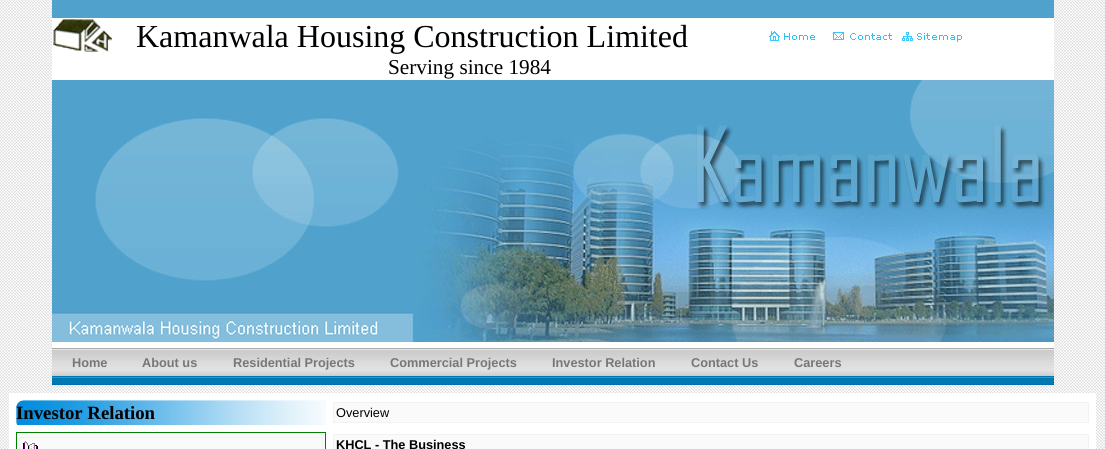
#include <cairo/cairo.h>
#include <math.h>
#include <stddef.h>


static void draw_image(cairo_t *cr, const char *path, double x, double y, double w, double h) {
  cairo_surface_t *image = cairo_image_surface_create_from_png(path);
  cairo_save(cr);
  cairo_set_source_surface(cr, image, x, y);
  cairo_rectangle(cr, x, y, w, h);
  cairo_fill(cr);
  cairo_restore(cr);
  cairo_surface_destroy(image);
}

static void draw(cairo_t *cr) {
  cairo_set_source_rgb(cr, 1, 1, 1);
  cairo_paint(cr);
  draw_image(cr, "images/1.png", 0, 0, 1105, 449);
  cairo_set_source_rgb(cr, 80 / 255.0, 162 / 255.0, 205 / 255.0);
  cairo_rectangle(cr, 52, 0, 1002, 18);
  cairo_fill(cr);
  cairo_set_source_rgb(cr, 1, 1, 1);
  cairo_rectangle(cr, 52, 18, 1002, 37);
  cairo_fill(cr);
  draw_image(cr, "images/2.png", 53, 19, 59, 33);
  draw_image(cr, "images/3.png", 769, 31, 46, 10);
  draw_image(cr, "images/4.png", 833, 32, 59, 8);
  draw_image(cr, "images/5.png", 902, 32, 60, 10);
  cairo_rectangle(cr, 52, 55, 1002, 25);
  cairo_fill(cr);
  draw_image(cr, "images/6.png", 52, 80, 1002, 262);
  cairo_rectangle(cr, 52, 342, 1002, 6);
  cairo_fill(cr);
  draw_image(cr, "images/7.png", 52, 348, 1002, 37);
  cairo_rectangle(cr, 9, 393, 1087, 56);
  cairo_fill(cr);
  draw_image(cr, "images/8.png", 16, 400, 310, 25);
  cairo_set_source_rgb(cr, 250 / 255.0, 250 / 255.0, 250 / 255.0);
  cairo_rectangle(cr, 333.5, 402.5, 755, 20);
  cairo_fill_preserve(cr);
  cairo_set_source_rgb(cr, 242 / 255.0, 242 / 255.0, 242 / 255.0);
  cairo_set_line_width(cr, 1);
  cairo_stroke(cr);
  cairo_set_source_rgb(cr, 250 / 255.0, 250 / 255.0, 250 / 255.0);
  cairo_rectangle(cr, 16.5, 432.5, 309, 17);
  cairo_fill_preserve(cr);
  cairo_set_source_rgb(cr, 0, 128 / 255.0, 0);
  cairo_stroke(cr);
  cairo_rectangle(cr, 19.5, 437.5, 303, 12);
  cairo_set_source_rgb(cr, 242 / 255.0, 242 / 255.0, 242 / 255.0);
  cairo_stroke(cr);
  draw_image(cr, "images/9.png", 22, 441, 16, 8);
  cairo_set_source_rgb(cr, 250 / 255.0, 250 / 255.0, 250 / 255.0);
  cairo_rectangle(cr, 333.5, 434.5, 755, 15);
  cairo_fill_preserve(cr);
  cairo_set_source_rgb(cr, 242 / 255.0, 242 / 255.0, 242 / 255.0);
  cairo_stroke(cr);
  cairo_select_font_face(cr, "Liberation Serif", CAIRO_FONT_SLANT_NORMAL, CAIRO_FONT_WEIGHT_NORMAL);
  cairo_set_font_size(cr, 32);
  cairo_set_source_rgb(cr, 0, 0, 0);
  cairo_move_to(cr, 136, 47);
  cairo_show_text(cr, "Kamanwala Housing Construction Limited");
  cairo_set_font_size(cr, 21.25);
  cairo_move_to(cr, 388, 74);
  cairo_show_text(cr, "Serving since 1984");
  cairo_select_font_face(cr, "Liberation Sans", CAIRO_FONT_SLANT_NORMAL, CAIRO_FONT_WEIGHT_BOLD);
  cairo_set_font_size(cr, 12.75);
  cairo_set_source_rgb(cr, 119 / 255.0, 119 / 255.0, 119 / 255.0);
  cairo_move_to(cr, 72, 367);
  cairo_show_text(cr, "Home");
  cairo_move_to(cr, 142, 367);
  cairo_show_text(cr, "About us");
  cairo_move_to(cr, 233, 367);
  cairo_show_text(cr, "Residential Projects");
  cairo_move_to(cr, 390, 367);
  cairo_show_text(cr, "Commercial Projects");
  cairo_move_to(cr, 552, 367);
  cairo_show_text(cr, "Investor Relation");
  cairo_move_to(cr, 691, 367);
  cairo_show_text(cr, "Contact Us");
  cairo_move_to(cr, 794, 367);
  cairo_show_text(cr, "Careers");
  cairo_select_font_face(cr, "Liberation Serif", CAIRO_FONT_SLANT_NORMAL, CAIRO_FONT_WEIGHT_BOLD);
  cairo_set_font_size(cr, 18.75);
  cairo_set_source_rgb(cr, 0, 0, 0);
  cairo_move_to(cr, 16, 419);
  cairo_show_text(cr, "Investor Relation");
  cairo_select_font_face(cr, "Liberation Sans", CAIRO_FONT_SLANT_NORMAL, CAIRO_FONT_WEIGHT_NORMAL);
  cairo_set_font_size(cr, 12.75);
  cairo_move_to(cr, 336, 417);
  cairo_show_text(cr, "Overview");
  cairo_select_font_face(cr, "Liberation Sans", CAIRO_FONT_SLANT_NORMAL, CAIRO_FONT_WEIGHT_BOLD);
  cairo_move_to(cr, 336, 449);
  cairo_show_text(cr, "KHCL - The Business");
}

int main(void) {
  cairo_surface_t *surface = cairo_image_surface_create(CAIRO_FORMAT_RGB24, 1105, 449);
  cairo_t *cr = cairo_create(surface);
  cairo_font_options_t *options = cairo_font_options_create();
  cairo_font_options_set_hint_metrics(options, CAIRO_HINT_METRICS_OFF);
  cairo_font_options_set_hint_style(options, CAIRO_HINT_STYLE_NONE);
  cairo_set_font_options(cr, options);
  cairo_set_miter_limit(cr, 4);
  draw(cr);
  cairo_surface_write_to_png(surface, "out.png");
  cairo_font_options_destroy(options);
  cairo_destroy(cr);
  cairo_surface_destroy(surface);
  return 0;
}
